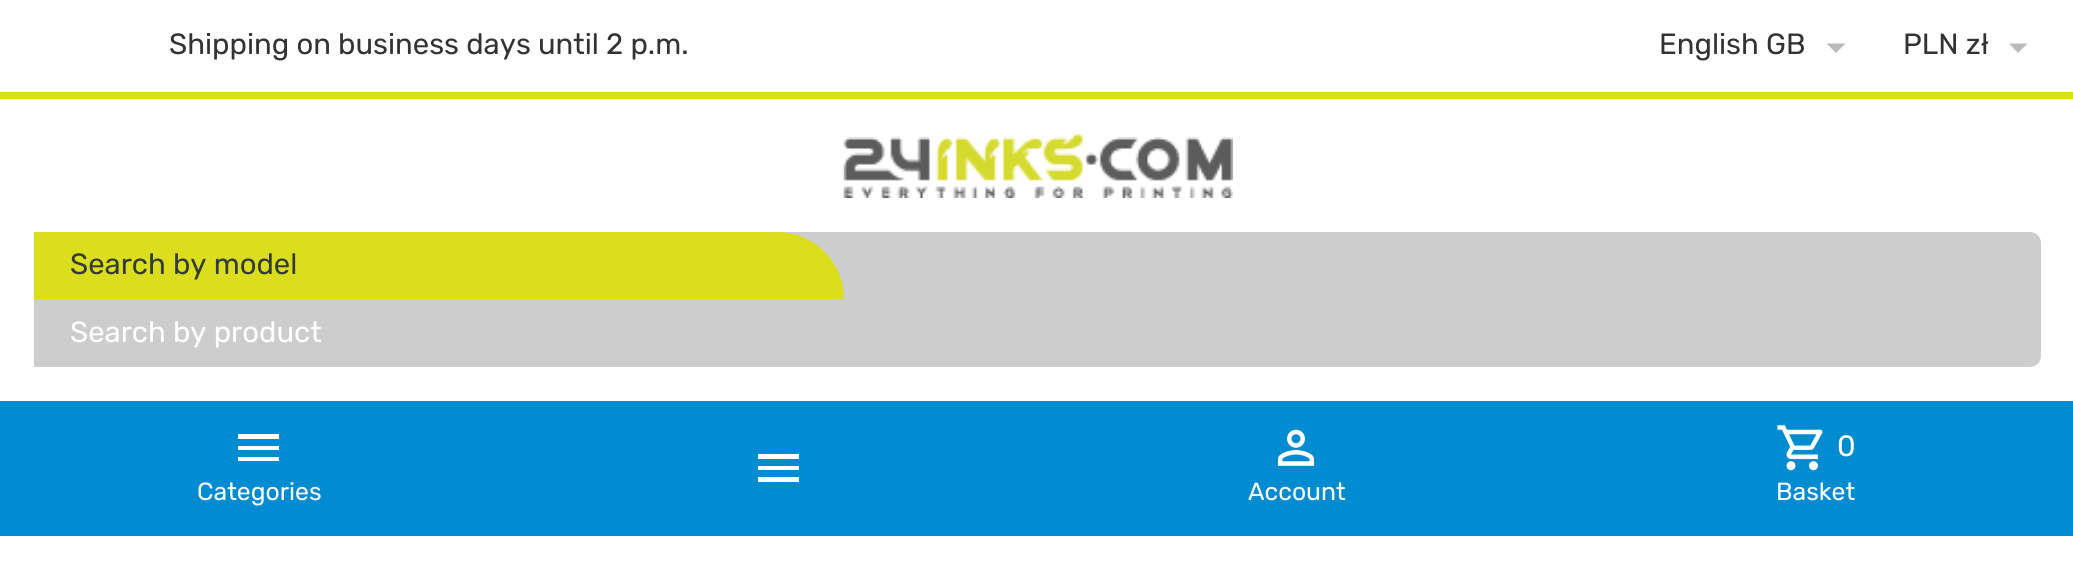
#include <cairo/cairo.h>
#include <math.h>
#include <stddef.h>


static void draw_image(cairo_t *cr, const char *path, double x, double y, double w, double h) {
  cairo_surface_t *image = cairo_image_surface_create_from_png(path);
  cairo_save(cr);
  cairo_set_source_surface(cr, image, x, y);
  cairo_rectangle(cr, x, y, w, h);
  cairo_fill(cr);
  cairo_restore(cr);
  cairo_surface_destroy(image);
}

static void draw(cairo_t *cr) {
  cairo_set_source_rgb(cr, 1, 1, 1);
  cairo_paint(cr);
  cairo_set_source_rgb(cr, 215 / 255.0, 223 / 255.0, 33 / 255.0);
  cairo_rectangle(cr, 0, 92, 2073, 7);
  cairo_fill(cr);
  cairo_set_source_rgb(cr, 187 / 255.0, 187 / 255.0, 187 / 255.0);
  cairo_new_path(cr);
  cairo_move_to(cr, 1826.5, 43.5);
  cairo_line_to(cr, 1836, 53);
  cairo_line_to(cr, 1845.5, 43.5);
  cairo_close_path(cr);
  cairo_fill(cr);
  cairo_new_path(cr);
  cairo_move_to(cr, 2009, 43.5);
  cairo_line_to(cr, 2018, 53);
  cairo_line_to(cr, 2027.5, 43.5);
  cairo_close_path(cr);
  cairo_fill(cr);
  draw_image(cr, "images/1.png", 843, 132, 390, 66);
  cairo_set_source_rgb(cr, 205 / 255.0, 205 / 255.0, 205 / 255.0);
  cairo_new_path(cr);
  cairo_move_to(cr, 34, 232);
  cairo_line_to(cr, 2030, 232);
  cairo_curve_to(cr, 2036, 232, 2041, 237, 2041, 243);
  cairo_line_to(cr, 2041, 356);
  cairo_curve_to(cr, 2041, 362, 2036, 367, 2030, 367);
  cairo_line_to(cr, 34, 367);
  cairo_close_path(cr);
  cairo_fill(cr);
  cairo_set_source_rgb(cr, 219 / 255.0, 222 / 255.0, 28 / 255.0);
  cairo_new_path(cr);
  cairo_move_to(cr, 34, 232);
  cairo_line_to(cr, 777, 232);
  cairo_curve_to(cr, 814, 232, 844, 262, 844, 299);
  cairo_line_to(cr, 34, 299);
  cairo_close_path(cr);
  cairo_fill(cr);
  cairo_rectangle(cr, 35, 300, 808, 66);
  cairo_set_source_rgb(cr, 205 / 255.0, 205 / 255.0, 201 / 255.0);
  cairo_stroke(cr);
  cairo_set_source_rgb(cr, 1 / 255.0, 140 / 255.0, 209 / 255.0);
  cairo_rectangle(cr, 0, 401, 2073, 135);
  cairo_fill(cr);
  cairo_set_source_rgb(cr, 1, 1, 1);
  cairo_new_path(cr);
  cairo_move_to(cr, 758, 482);
  cairo_line_to(cr, 799, 482);
  cairo_line_to(cr, 799, 477);
  cairo_line_to(cr, 758, 477);
  cairo_close_path(cr);
  cairo_move_to(cr, 758, 470);
  cairo_line_to(cr, 799, 470);
  cairo_line_to(cr, 799, 466);
  cairo_line_to(cr, 758, 466);
  cairo_close_path(cr);
  cairo_move_to(cr, 758, 454);
  cairo_line_to(cr, 758, 459);
  cairo_line_to(cr, 799, 459);
  cairo_line_to(cr, 799, 454);
  cairo_close_path(cr);
  cairo_fill(cr);
  draw_image(cr, "images/2.png", 1777, 425, 46, 46);
  cairo_new_path(cr);
  cairo_move_to(cr, 238, 461);
  cairo_line_to(cr, 279, 461);
  cairo_line_to(cr, 279, 457);
  cairo_line_to(cr, 238, 457);
  cairo_close_path(cr);
  cairo_move_to(cr, 238, 450);
  cairo_line_to(cr, 279, 450);
  cairo_line_to(cr, 279, 446);
  cairo_line_to(cr, 238, 446);
  cairo_close_path(cr);
  cairo_move_to(cr, 238, 434);
  cairo_line_to(cr, 238, 439);
  cairo_line_to(cr, 279, 439);
  cairo_line_to(cr, 279, 434);
  cairo_close_path(cr);
  cairo_fill(cr);
  draw_image(cr, "images/3.png", 1277, 429, 38, 37);
  cairo_select_font_face(cr, "Rubik", CAIRO_FONT_SLANT_NORMAL, CAIRO_FONT_WEIGHT_NORMAL);
  cairo_set_font_size(cr, 29.25);
  cairo_set_source_rgb(cr, 51 / 255.0, 51 / 255.0, 51 / 255.0);
  cairo_move_to(cr, 169, 54);
  cairo_show_text(cr, "Shipping on business days until 2 p.m.");
  cairo_move_to(cr, 1659, 54);
  cairo_show_text(cr, "English GB");
  cairo_move_to(cr, 1903, 54);
  cairo_show_text(cr, "PLN zł");
  cairo_set_source_rgb(cr, 52 / 255.0, 58 / 255.0, 60 / 255.0);
  cairo_move_to(cr, 70, 274);
  cairo_show_text(cr, "Search by model");
  cairo_set_source_rgb(cr, 1, 1, 1);
  cairo_move_to(cr, 70, 342);
  cairo_show_text(cr, "Search by product");
  cairo_move_to(cr, 1837, 456);
  cairo_show_text(cr, "0");
  cairo_set_font_size(cr, 24.75);
  cairo_move_to(cr, 1776, 500);
  cairo_show_text(cr, "Basket");
  cairo_move_to(cr, 197, 500);
  cairo_show_text(cr, "Categories");
  cairo_move_to(cr, 1248, 500);
  cairo_show_text(cr, "Account");
}

int main(void) {
  cairo_surface_t *surface = cairo_image_surface_create(CAIRO_FORMAT_RGB24, 2073, 572);
  cairo_t *cr = cairo_create(surface);
  cairo_font_options_t *options = cairo_font_options_create();
  cairo_font_options_set_hint_metrics(options, CAIRO_HINT_METRICS_OFF);
  cairo_font_options_set_hint_style(options, CAIRO_HINT_STYLE_NONE);
  cairo_set_font_options(cr, options);
  cairo_set_miter_limit(cr, 4);
  draw(cr);
  cairo_surface_write_to_png(surface, "out.png");
  cairo_font_options_destroy(options);
  cairo_destroy(cr);
  cairo_surface_destroy(surface);
  return 0;
}
